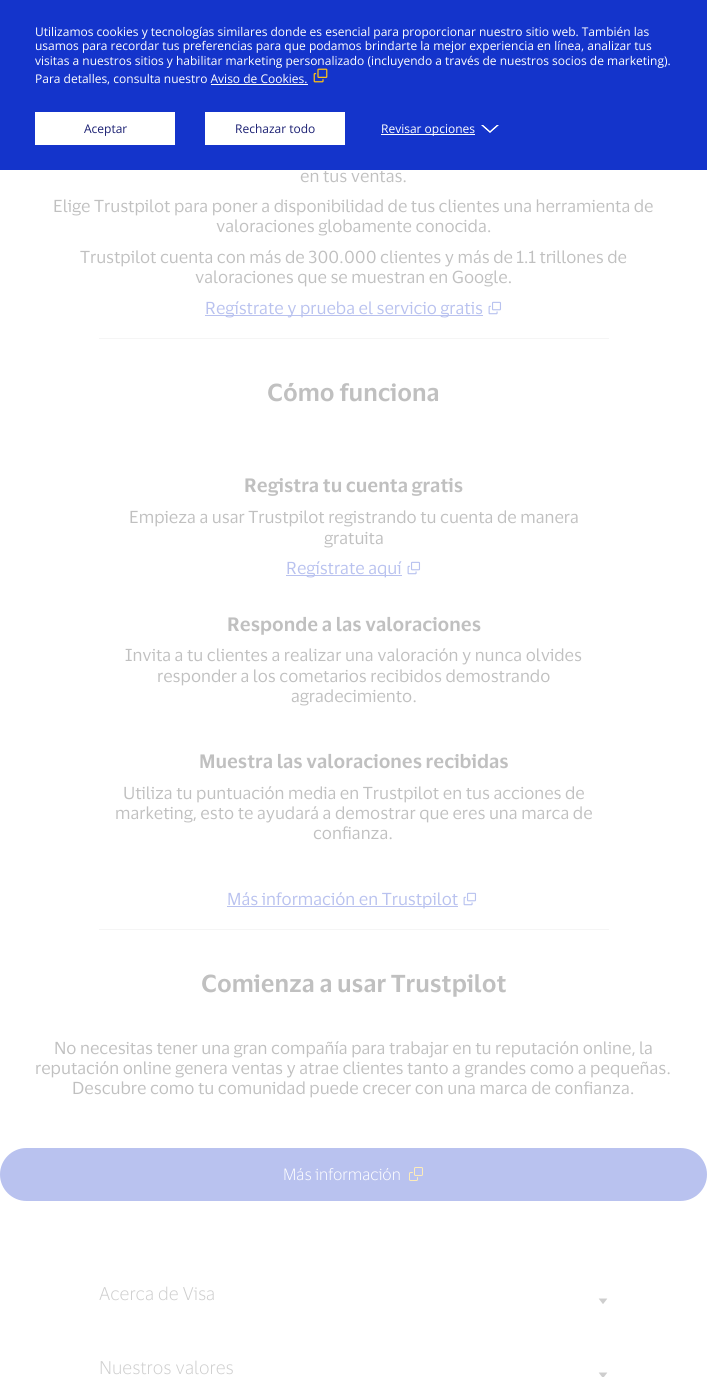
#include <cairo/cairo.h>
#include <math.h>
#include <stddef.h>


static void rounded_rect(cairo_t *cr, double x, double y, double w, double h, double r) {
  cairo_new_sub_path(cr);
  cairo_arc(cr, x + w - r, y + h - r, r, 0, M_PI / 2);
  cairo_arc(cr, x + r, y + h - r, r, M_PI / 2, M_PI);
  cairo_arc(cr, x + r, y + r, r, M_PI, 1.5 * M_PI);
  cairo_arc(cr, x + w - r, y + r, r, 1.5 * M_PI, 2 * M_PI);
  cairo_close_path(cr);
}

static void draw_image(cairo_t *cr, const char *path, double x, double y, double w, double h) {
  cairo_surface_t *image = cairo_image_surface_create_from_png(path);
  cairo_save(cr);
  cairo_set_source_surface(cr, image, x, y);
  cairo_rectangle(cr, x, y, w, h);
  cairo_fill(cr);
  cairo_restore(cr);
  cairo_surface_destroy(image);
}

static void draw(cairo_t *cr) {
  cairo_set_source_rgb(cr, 1, 1, 1);
  cairo_paint(cr);
  cairo_set_source_rgb(cr, 20 / 255.0, 52 / 255.0, 203 / 255.0);
  cairo_rectangle(cr, 0, 0, 707, 170);
  cairo_fill(cr);
  draw_image(cr, "images/1.png", 313, 68, 15, 15);
  cairo_set_source_rgb(cr, 1, 1, 1);
  cairo_rectangle(cr, 211, 84, 97, 1);
  cairo_fill(cr);
  cairo_rectangle(cr, 35, 112, 140, 33);
  cairo_fill(cr);
  cairo_rectangle(cr, 205, 112, 140, 33);
  cairo_fill(cr);
  cairo_rectangle(cr, 381, 134, 94, 1);
  cairo_fill(cr);
  draw_image(cr, "images/2.png", 481, 125, 18, 8);
  cairo_set_source_rgb(cr, 185 / 255.0, 194 / 255.0, 239 / 255.0);
  cairo_rectangle(cr, 205, 315, 278, 1);
  cairo_fill(cr);
  draw_image(cr, "images/3.png", 488, 301, 14, 14);
  cairo_set_source_rgb(cr, 245 / 255.0, 245 / 255.0, 245 / 255.0);
  cairo_rectangle(cr, 99, 338, 510, 1);
  cairo_fill(cr);
  cairo_set_source_rgb(cr, 185 / 255.0, 194 / 255.0, 239 / 255.0);
  cairo_rectangle(cr, 286, 575, 116, 1);
  cairo_fill(cr);
  draw_image(cr, "images/3.png", 407, 561, 14, 14);
  cairo_rectangle(cr, 227, 906, 231, 1);
  cairo_fill(cr);
  draw_image(cr, "images/3.png", 463, 892, 14, 14);
  cairo_set_source_rgb(cr, 245 / 255.0, 245 / 255.0, 245 / 255.0);
  cairo_rectangle(cr, 99, 929, 510, 1);
  cairo_fill(cr);
  cairo_set_source_rgb(cr, 185 / 255.0, 194 / 255.0, 239 / 255.0);
  rounded_rect(cr, 0, 1148, 707, 53, 26.5);
  cairo_fill(cr);
  draw_image(cr, "images/4.png", 409, 1167, 14, 14);
  draw_image(cr, "images/5.png", 598, 1298, 10, 6);
  draw_image(cr, "images/6.png", 598, 1372, 10, 5);
  cairo_select_font_face(cr, "Open Sans", CAIRO_FONT_SLANT_NORMAL, CAIRO_FONT_WEIGHT_NORMAL);
  cairo_set_font_size(cr, 12);
  cairo_set_source_rgb(cr, 1, 1, 1);
  cairo_move_to(cr, 35, 36);
  cairo_show_text(cr, "Utilizamos cookies y tecnologías similares donde es esencial para proporcionar nuestro sitio web. También las");
  cairo_move_to(cr, 35, 50);
  cairo_show_text(cr, "usamos para recordar tus preferencias para que podamos brindarte la mejor experiencia en línea, analizar tus");
  cairo_move_to(cr, 35, 65);
  cairo_show_text(cr, "visitas a nuestros sitios y habilitar marketing personalizado (incluyendo a través de nuestros socios de marketing).");
  cairo_move_to(cr, 35, 83);
  cairo_show_text(cr, "Para detalles, consulta nuestro Aviso de Cookies.");
  cairo_set_source_rgb(cr, 26 / 255.0, 31 / 255.0, 114 / 255.0);
  cairo_move_to(cr, 84, 133);
  cairo_show_text(cr, "Aceptar");
  cairo_move_to(cr, 235, 133);
  cairo_show_text(cr, "Rechazar todo");
  cairo_set_source_rgb(cr, 1, 1, 1);
  cairo_move_to(cr, 381, 133);
  cairo_show_text(cr, "Revisar opciones");
  cairo_select_font_face(cr, "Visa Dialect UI", CAIRO_FONT_SLANT_NORMAL, CAIRO_FONT_WEIGHT_NORMAL);
  cairo_set_font_size(cr, 17);
  cairo_set_source_rgb(cr, 192 / 255.0, 192 / 255.0, 192 / 255.0);
  cairo_move_to(cr, 300, 182);
  cairo_show_text(cr, "en tus ventas.");
  cairo_move_to(cr, 53, 212);
  cairo_show_text(cr, "Elige Trustpilot para poner a disponibilidad de tus clientes una herramienta de");
  cairo_move_to(cr, 216, 232);
  cairo_show_text(cr, "valoraciones globamente conocida.");
  cairo_move_to(cr, 80, 263);
  cairo_show_text(cr, "Trustpilot cuenta con más de 300.000 clientes y más de 1.1 trillones de");
  cairo_move_to(cr, 195, 283);
  cairo_show_text(cr, "valoraciones que se muestran en Google.");
  cairo_set_source_rgb(cr, 185 / 255.0, 194 / 255.0, 239 / 255.0);
  cairo_move_to(cr, 205, 314);
  cairo_show_text(cr, "Regístrate y prueba el servicio gratis");
  cairo_select_font_face(cr, "Visa Dialect UI SemiBold", CAIRO_FONT_SLANT_NORMAL, CAIRO_FONT_WEIGHT_NORMAL);
  cairo_set_font_size(cr, 24);
  cairo_set_source_rgb(cr, 192 / 255.0, 192 / 255.0, 192 / 255.0);
  cairo_move_to(cr, 267, 401);
  cairo_show_text(cr, "Cómo funciona");
  cairo_set_font_size(cr, 19);
  cairo_move_to(cr, 244, 492);
  cairo_show_text(cr, "Registra tu cuenta gratis");
  cairo_select_font_face(cr, "Visa Dialect UI", CAIRO_FONT_SLANT_NORMAL, CAIRO_FONT_WEIGHT_NORMAL);
  cairo_set_font_size(cr, 17);
  cairo_move_to(cr, 129, 523);
  cairo_show_text(cr, "Empieza a usar Trustpilot registrando tu cuenta de manera");
  cairo_move_to(cr, 324, 544);
  cairo_show_text(cr, "gratuita");
  cairo_set_source_rgb(cr, 185 / 255.0, 194 / 255.0, 239 / 255.0);
  cairo_move_to(cr, 286, 574);
  cairo_show_text(cr, "Regístrate aquí");
  cairo_select_font_face(cr, "Visa Dialect UI SemiBold", CAIRO_FONT_SLANT_NORMAL, CAIRO_FONT_WEIGHT_NORMAL);
  cairo_set_font_size(cr, 19);
  cairo_set_source_rgb(cr, 192 / 255.0, 192 / 255.0, 192 / 255.0);
  cairo_move_to(cr, 227, 631);
  cairo_show_text(cr, "Responde a las valoraciones");
  cairo_select_font_face(cr, "Visa Dialect UI", CAIRO_FONT_SLANT_NORMAL, CAIRO_FONT_WEIGHT_NORMAL);
  cairo_set_font_size(cr, 17);
  cairo_move_to(cr, 125, 661);
  cairo_show_text(cr, "Invita a tu clientes a realizar una valoración y nunca olvides");
  cairo_move_to(cr, 157, 682);
  cairo_show_text(cr, "responder a los cometarios recibidos demostrando");
  cairo_move_to(cr, 291, 702);
  cairo_show_text(cr, "agradecimiento.");
  cairo_select_font_face(cr, "Visa Dialect UI SemiBold", CAIRO_FONT_SLANT_NORMAL, CAIRO_FONT_WEIGHT_NORMAL);
  cairo_set_font_size(cr, 19);
  cairo_move_to(cr, 199, 768);
  cairo_show_text(cr, "Muestra las valoraciones recibidas");
  cairo_select_font_face(cr, "Visa Dialect UI", CAIRO_FONT_SLANT_NORMAL, CAIRO_FONT_WEIGHT_NORMAL);
  cairo_set_font_size(cr, 17);
  cairo_move_to(cr, 123, 799);
  cairo_show_text(cr, "Utiliza tu puntuación media en Trustpilot en tus acciones de");
  cairo_move_to(cr, 115, 819);
  cairo_show_text(cr, "marketing, esto te ayudará a demostrar que eres una marca de");
  cairo_move_to(cr, 313, 839);
  cairo_show_text(cr, "confianza.");
  cairo_set_source_rgb(cr, 185 / 255.0, 194 / 255.0, 239 / 255.0);
  cairo_move_to(cr, 227, 905);
  cairo_show_text(cr, "Más información en Trustpilot");
  cairo_select_font_face(cr, "Visa Dialect UI SemiBold", CAIRO_FONT_SLANT_NORMAL, CAIRO_FONT_WEIGHT_NORMAL);
  cairo_set_font_size(cr, 24);
  cairo_set_source_rgb(cr, 192 / 255.0, 192 / 255.0, 192 / 255.0);
  cairo_move_to(cr, 201, 992);
  cairo_show_text(cr, "Comienza a usar Trustpilot");
  cairo_select_font_face(cr, "Visa Dialect UI", CAIRO_FONT_SLANT_NORMAL, CAIRO_FONT_WEIGHT_NORMAL);
  cairo_set_font_size(cr, 17);
  cairo_move_to(cr, 54, 1054);
  cairo_show_text(cr, "No necesitas tener una gran compañía para trabajar en tu reputación online, la");
  cairo_move_to(cr, 35, 1074);
  cairo_show_text(cr, "reputación online genera ventas y atrae clientes tanto a grandes como a pequeñas.");
  cairo_move_to(cr, 72, 1094);
  cairo_show_text(cr, "Descubre como tu comunidad puede crecer con una marca de confianza.");
  cairo_select_font_face(cr, "Visa Dialect UI Light", CAIRO_FONT_SLANT_NORMAL, CAIRO_FONT_WEIGHT_NORMAL);
  cairo_set_font_size(cr, 16);
  cairo_set_source_rgb(cr, 1, 1, 1);
  cairo_move_to(cr, 283, 1180);
  cairo_show_text(cr, "Más información");
  cairo_set_font_size(cr, 18);
  cairo_set_source_rgb(cr, 206 / 255.0, 206 / 255.0, 206 / 255.0);
  cairo_move_to(cr, 99, 1300);
  cairo_show_text(cr, "Acerca de Visa");
  cairo_move_to(cr, 99, 1374);
  cairo_show_text(cr, "Nuestros valores");
}

int main(void) {
  cairo_surface_t *surface = cairo_image_surface_create(CAIRO_FORMAT_RGB24, 707, 1377);
  cairo_t *cr = cairo_create(surface);
  cairo_font_options_t *options = cairo_font_options_create();
  cairo_font_options_set_hint_metrics(options, CAIRO_HINT_METRICS_OFF);
  cairo_font_options_set_hint_style(options, CAIRO_HINT_STYLE_NONE);
  cairo_set_font_options(cr, options);
  cairo_set_miter_limit(cr, 4);
  draw(cr);
  cairo_surface_write_to_png(surface, "out.png");
  cairo_font_options_destroy(options);
  cairo_destroy(cr);
  cairo_surface_destroy(surface);
  return 0;
}
